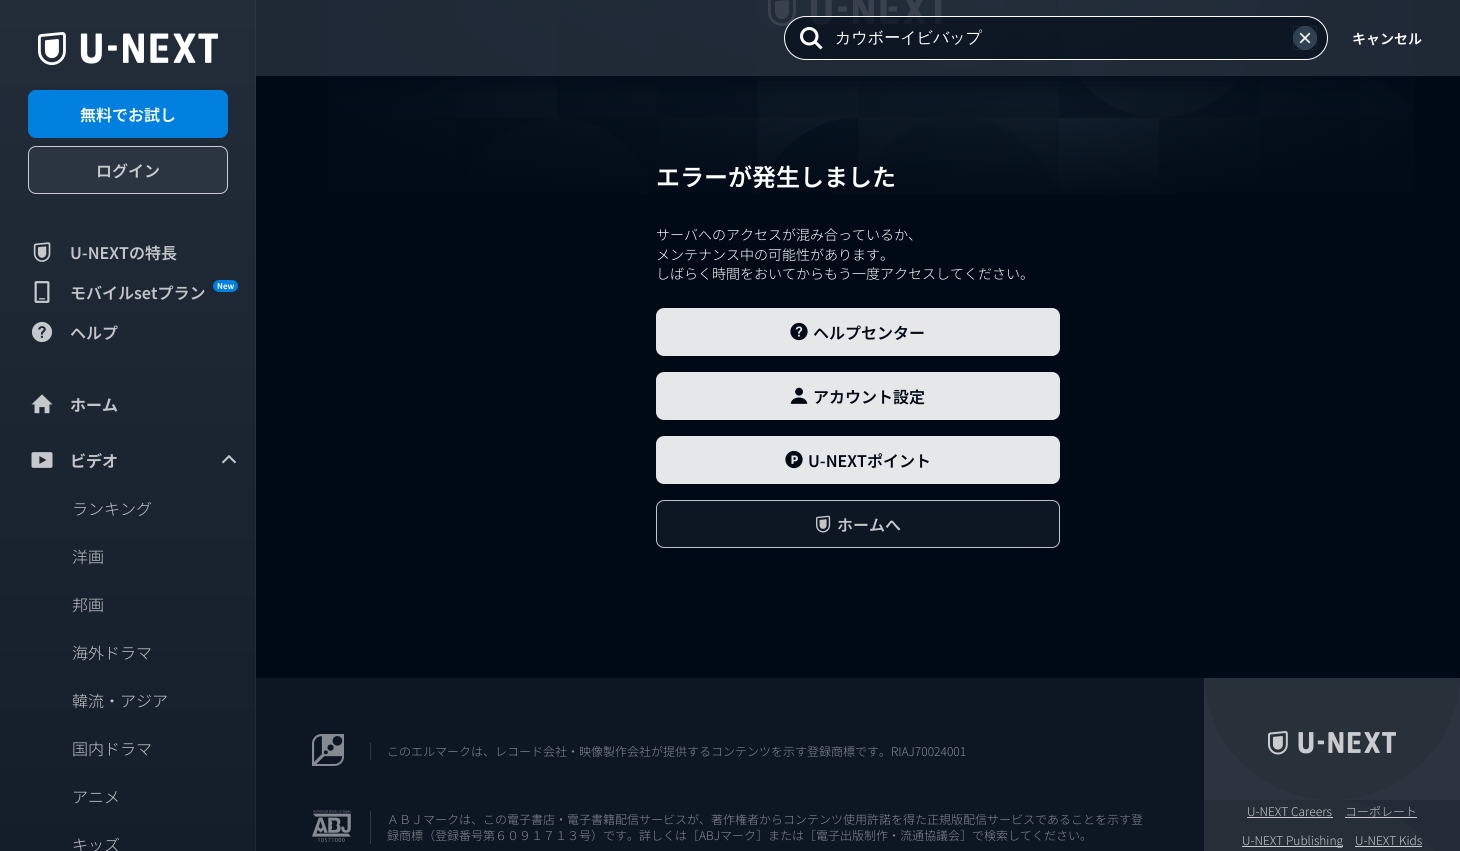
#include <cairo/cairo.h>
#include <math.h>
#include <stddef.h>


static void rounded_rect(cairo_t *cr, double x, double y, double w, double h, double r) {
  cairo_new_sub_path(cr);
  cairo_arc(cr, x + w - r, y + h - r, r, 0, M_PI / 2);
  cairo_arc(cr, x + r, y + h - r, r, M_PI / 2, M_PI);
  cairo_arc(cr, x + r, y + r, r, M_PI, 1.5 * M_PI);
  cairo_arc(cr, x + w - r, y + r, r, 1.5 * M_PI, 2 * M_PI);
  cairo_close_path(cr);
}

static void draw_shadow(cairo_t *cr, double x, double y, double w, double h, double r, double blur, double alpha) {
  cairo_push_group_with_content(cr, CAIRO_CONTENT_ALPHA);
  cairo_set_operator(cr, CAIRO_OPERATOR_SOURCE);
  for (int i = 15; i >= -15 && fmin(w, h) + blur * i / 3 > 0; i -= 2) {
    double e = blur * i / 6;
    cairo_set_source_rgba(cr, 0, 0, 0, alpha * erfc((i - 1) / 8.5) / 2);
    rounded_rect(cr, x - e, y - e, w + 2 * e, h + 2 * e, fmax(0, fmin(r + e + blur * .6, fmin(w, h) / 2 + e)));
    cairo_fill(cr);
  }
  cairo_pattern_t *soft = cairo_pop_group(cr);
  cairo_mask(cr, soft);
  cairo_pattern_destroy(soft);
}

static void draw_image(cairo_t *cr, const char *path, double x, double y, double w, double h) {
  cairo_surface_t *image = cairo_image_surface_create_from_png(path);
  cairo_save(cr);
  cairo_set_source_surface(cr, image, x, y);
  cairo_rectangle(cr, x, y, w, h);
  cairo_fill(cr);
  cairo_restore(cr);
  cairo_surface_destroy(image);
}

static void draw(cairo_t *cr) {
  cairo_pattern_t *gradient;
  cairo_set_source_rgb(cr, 0, 10 / 255.0, 23 / 255.0);
  cairo_paint(cr);
  draw_image(cr, "images/10.png", 327, 0, 1087, 194);
  draw_image(cr, "images/11.png", 768, 0, 174, 27);
  cairo_save(cr);
  cairo_rectangle(cr, 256, 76, 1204, 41);
  cairo_clip(cr);
  draw_shadow(cr, 256, 8, 1204, 76, 0, 16, 1);
  cairo_restore(cr);
  cairo_set_source_rgba(cr, 35 / 255.0, 45 / 255.0, 58 / 255.0, 0.9);
  cairo_rectangle(cr, 256, 0, 1204, 76);
  cairo_fill(cr);
  cairo_set_source_rgba(cr, 0, 10 / 255.0, 23 / 255.0, 0.6);
  rounded_rect(cr, 784.5, 16.5, 543, 43, 21.5);
  cairo_fill_preserve(cr);
  cairo_set_source_rgb(cr, 1, 1, 1);
  cairo_set_line_width(cr, 1);
  cairo_stroke(cr);
  draw_image(cr, "images/1.png", 800, 27, 23, 23);
  cairo_set_source_rgb(cr, 49 / 255.0, 65 / 255.0, 84 / 255.0);
  cairo_arc(cr, 1305, 38, 12, 0, 2 * M_PI);
  cairo_fill(cr);
  cairo_rectangle(cr, 1293.5, 26.5, 23, 23);
  cairo_set_source_rgba(cr, 1, 1, 1, 0.05);
  cairo_stroke(cr);
  draw_image(cr, "images/2.png", 1299, 32, 12, 12);
  gradient = cairo_pattern_create_linear(127, 0, 128, 851);
  cairo_pattern_add_color_stop_rgba(gradient, 0, 35 / 255.0, 45 / 255.0, 58 / 255.0, 1);
  cairo_pattern_add_color_stop_rgba(gradient, 1, 20 / 255.0, 30 / 255.0, 43 / 255.0, 1);
  cairo_set_source(cr, gradient);
  cairo_pattern_destroy(gradient);
  cairo_rectangle(cr, 0, 0, 256, 851);
  cairo_fill(cr);
  cairo_set_source_rgba(cr, 1, 1, 1, 0.05);
  cairo_rectangle(cr, 255, 0, 1, 851);
  cairo_fill(cr);
  draw_image(cr, "images/3.png", 38, 32, 180, 34);
  cairo_set_source_rgb(cr, 0, 128 / 255.0, 222 / 255.0);
  rounded_rect(cr, 28, 90, 200, 48, 8);
  cairo_fill(cr);
  cairo_set_source_rgb(cr, 43 / 255.0, 53 / 255.0, 65 / 255.0);
  rounded_rect(cr, 28, 146, 200, 48, 8);
  cairo_fill(cr);
  rounded_rect(cr, 28.5, 146.5, 199, 47, 7.5);
  cairo_set_source_rgba(cr, 1, 1, 1, 0.75);
  cairo_stroke(cr);
  draw_image(cr, "images/4.png", 33, 242, 18, 20);
  draw_image(cr, "images/5.png", 34, 281, 16, 22);
  cairo_set_source_rgb(cr, 0, 128 / 255.0, 222 / 255.0);
  rounded_rect(cr, 213, 280, 25, 12, 6);
  cairo_fill(cr);
  draw_image(cr, "images/6.png", 31, 321, 22, 21);
  draw_image(cr, "images/7.png", 31, 394, 22, 20);
  draw_image(cr, "images/8.png", 31, 452, 22, 16);
  draw_image(cr, "images/9.png", 222, 455, 14, 9);
  cairo_set_source_rgb(cr, 230 / 255.0, 231 / 255.0, 232 / 255.0);
  rounded_rect(cr, 656, 308, 404, 48, 8);
  cairo_fill(cr);
  draw_image(cr, "images/12.png", 790, 322, 18, 19);
  rounded_rect(cr, 656, 372, 404, 48, 8);
  cairo_fill(cr);
  draw_image(cr, "images/13.png", 790, 387, 18, 17);
  rounded_rect(cr, 656, 436, 404, 48, 8);
  cairo_fill(cr);
  draw_image(cr, "images/14.png", 785, 450, 18, 19);
  cairo_set_source_rgb(cr, 13 / 255.0, 22 / 255.0, 35 / 255.0);
  rounded_rect(cr, 656, 500, 404, 48, 8);
  cairo_fill(cr);
  rounded_rect(cr, 656.5, 500.5, 403, 47, 7.5);
  cairo_set_source_rgba(cr, 1, 1, 1, 0.75);
  cairo_stroke(cr);
  draw_image(cr, "images/15.png", 816, 515, 15, 18);
  cairo_set_source_rgb(cr, 13 / 255.0, 22 / 255.0, 35 / 255.0);
  cairo_rectangle(cr, 256, 678, 948, 173);
  cairo_fill(cr);
  draw_image(cr, "images/16.png", 312, 734, 32, 32);
  cairo_set_source_rgb(cr, 49 / 255.0, 57 / 255.0, 68 / 255.0);
  cairo_rectangle(cr, 370, 743, 1, 17);
  cairo_fill(cr);
  draw_image(cr, "images/17.png", 312, 810, 39, 32);
  cairo_rectangle(cr, 370, 811, 1, 33);
  cairo_fill(cr);
  cairo_set_source_rgb(cr, 35 / 255.0, 43 / 255.0, 54 / 255.0);
  cairo_rectangle(cr, 1333, 800, 127, 51);
  cairo_fill(cr);
  cairo_set_source_rgb(cr, 38 / 255.0, 46 / 255.0, 56 / 255.0);
  cairo_set_fill_rule(cr, CAIRO_FILL_RULE_EVEN_ODD);
  cairo_new_path(cr);
  cairo_move_to(cr, 1460, 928);
  cairo_curve_to(cr, 1460, 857, 1403, 800, 1332, 800);
  cairo_line_to(cr, 1204, 800);
  cairo_line_to(cr, 1204, 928);
  cairo_close_path(cr);
  cairo_fill(cr);
  cairo_set_source_rgb(cr, 43 / 255.0, 52 / 255.0, 63 / 255.0);
  cairo_rectangle(cr, 1204, 678, 256, 122);
  cairo_fill(cr);
  cairo_save(cr);
  cairo_set_fill_rule(cr, CAIRO_FILL_RULE_WINDING);
  cairo_rectangle(cr, 1204, 678, 256, 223);
  cairo_clip(cr);
  cairo_set_source_rgb(cr, 40 / 255.0, 48 / 255.0, 58 / 255.0);
  cairo_set_fill_rule(cr, CAIRO_FILL_RULE_EVEN_ODD);
  cairo_new_path(cr);
  cairo_move_to(cr, 1332, 800);
  cairo_curve_to(cr, 1261, 800, 1204, 743, 1204, 672);
  cairo_line_to(cr, 1460, 672);
  cairo_curve_to(cr, 1460, 743, 1403, 800, 1332, 800);
  cairo_close_path(cr);
  cairo_fill(cr);
  cairo_restore(cr);
  draw_image(cr, "images/18.png", 1268, 731, 128, 24);
  cairo_set_source_rgb(cr, 201 / 255.0, 203 / 255.0, 205 / 255.0);
  cairo_rectangle(cr, 1247, 817, 86, 1);
  cairo_fill(cr);
  cairo_set_source_rgba(cr, 1, 1, 1, 0.75);
  cairo_rectangle(cr, 1345, 817, 72, 1);
  cairo_fill(cr);
  cairo_set_source_rgb(cr, 201 / 255.0, 203 / 255.0, 205 / 255.0);
  cairo_rectangle(cr, 1242, 846, 101, 1);
  cairo_fill(cr);
  cairo_rectangle(cr, 1355, 846, 67, 1);
  cairo_fill(cr);
  cairo_select_font_face(cr, "WenQuanYi Zen Hei Medium", CAIRO_FONT_SLANT_NORMAL, CAIRO_FONT_WEIGHT_NORMAL);
  cairo_set_font_size(cr, 16);
  cairo_set_source_rgb(cr, 1, 1, 1);
  cairo_move_to(cr, 835, 43);
  cairo_show_text(cr, "カウボーイビバップ");
  cairo_select_font_face(cr, "Noto Sans JP SemiBold", CAIRO_FONT_SLANT_NORMAL, CAIRO_FONT_WEIGHT_NORMAL);
  cairo_set_font_size(cr, 14);
  cairo_move_to(cr, 1352, 44);
  cairo_show_text(cr, "キャンセル");
  cairo_set_font_size(cr, 16);
  cairo_move_to(cr, 80, 121);
  cairo_show_text(cr, "無料でお試し");
  cairo_set_source_rgb(cr, 201 / 255.0, 203 / 255.0, 205 / 255.0);
  cairo_move_to(cr, 96, 177);
  cairo_show_text(cr, "ログイン");
  cairo_set_source_rgb(cr, 195 / 255.0, 197 / 255.0, 200 / 255.0);
  cairo_move_to(cr, 70, 259);
  cairo_show_text(cr, "U-NEXTの特長");
  cairo_move_to(cr, 70, 299);
  cairo_show_text(cr, "モバイルsetプラン");
  cairo_set_font_size(cr, 8);
  cairo_set_source_rgb(cr, 1, 1, 1);
  cairo_move_to(cr, 217, 289);
  cairo_show_text(cr, "New");
  cairo_set_font_size(cr, 16);
  cairo_set_source_rgb(cr, 195 / 255.0, 197 / 255.0, 200 / 255.0);
  cairo_move_to(cr, 70, 339);
  cairo_show_text(cr, "ヘルプ");
  cairo_select_font_face(cr, "Noto Sans JP", CAIRO_FONT_SLANT_NORMAL, CAIRO_FONT_WEIGHT_BOLD);
  cairo_move_to(cr, 70, 411);
  cairo_show_text(cr, "ホーム");
  cairo_move_to(cr, 70, 467);
  cairo_show_text(cr, "ビデオ");
  cairo_select_font_face(cr, "Noto Sans JP Light", CAIRO_FONT_SLANT_NORMAL, CAIRO_FONT_WEIGHT_NORMAL);
  cairo_move_to(cr, 72, 515);
  cairo_show_text(cr, "ランキング");
  cairo_move_to(cr, 72, 563);
  cairo_show_text(cr, "洋画");
  cairo_move_to(cr, 72, 611);
  cairo_show_text(cr, "邦画");
  cairo_move_to(cr, 72, 659);
  cairo_show_text(cr, "海外ドラマ");
  cairo_move_to(cr, 72, 707);
  cairo_show_text(cr, "韓流・アジア");
  cairo_move_to(cr, 72, 755);
  cairo_show_text(cr, "国内ドラマ");
  cairo_move_to(cr, 72, 803);
  cairo_show_text(cr, "アニメ");
  cairo_move_to(cr, 72, 851);
  cairo_show_text(cr, "キッズ");
  cairo_select_font_face(cr, "Noto Sans JP SemiBold", CAIRO_FONT_SLANT_NORMAL, CAIRO_FONT_WEIGHT_NORMAL);
  cairo_set_font_size(cr, 24);
  cairo_set_source_rgb(cr, 1, 1, 1);
  cairo_move_to(cr, 656, 186);
  cairo_show_text(cr, "エラーが発生しました");
  cairo_select_font_face(cr, "Noto Sans JP Light", CAIRO_FONT_SLANT_NORMAL, CAIRO_FONT_WEIGHT_NORMAL);
  cairo_set_font_size(cr, 14);
  cairo_move_to(cr, 656, 240);
  cairo_show_text(cr, "サーバへのアクセスが混み合っているか、");
  cairo_move_to(cr, 656, 260);
  cairo_show_text(cr, "メンテナンス中の可能性があります。");
  cairo_move_to(cr, 656, 279);
  cairo_show_text(cr, "しばらく時間をおいてからもう一度アクセスしてください。");
  cairo_select_font_face(cr, "Noto Sans JP SemiBold", CAIRO_FONT_SLANT_NORMAL, CAIRO_FONT_WEIGHT_NORMAL);
  cairo_set_font_size(cr, 16);
  cairo_set_source_rgb(cr, 0, 10 / 255.0, 23 / 255.0);
  cairo_move_to(cr, 813, 339);
  cairo_show_text(cr, "ヘルプセンター");
  cairo_move_to(cr, 813, 403);
  cairo_show_text(cr, "アカウント設定");
  cairo_move_to(cr, 808, 467);
  cairo_show_text(cr, "U-NEXTポイント");
  cairo_set_source_rgb(cr, 195 / 255.0, 197 / 255.0, 200 / 255.0);
  cairo_move_to(cr, 837, 531);
  cairo_show_text(cr, "ホームへ");
  cairo_select_font_face(cr, "Noto Sans JP Light", CAIRO_FONT_SLANT_NORMAL, CAIRO_FONT_WEIGHT_NORMAL);
  cairo_set_font_size(cr, 12);
  cairo_set_source_rgb(cr, 134 / 255.0, 139 / 255.0, 145 / 255.0);
  cairo_move_to(cr, 387, 756);
  cairo_show_text(cr, "このエルマークは、レコード会社・映像製作会社が提供するコンテンツを示す登録商標です。RIAJ70024001");
  cairo_move_to(cr, 387, 824);
  cairo_show_text(cr, "ＡＢＪマークは、この電子書店・電子書籍配信サービスが、著作権者からコンテンツ使用許諾を得た正規版配信サービスであることを示す登");
  cairo_move_to(cr, 387, 840);
  cairo_show_text(cr, "録商標（登録番号第６０９１７１３号）です。詳しくは［ABJマーク］または［電子出版制作・流通協議会］で検索してください。");
  cairo_set_source_rgb(cr, 201 / 255.0, 203 / 255.0, 205 / 255.0);
  cairo_move_to(cr, 1247, 816);
  cairo_show_text(cr, "U-NEXT Careers");
  cairo_set_source_rgb(cr, 195 / 255.0, 197 / 255.0, 200 / 255.0);
  cairo_move_to(cr, 1345, 816);
  cairo_show_text(cr, "コーポレート");
  cairo_set_source_rgb(cr, 201 / 255.0, 203 / 255.0, 205 / 255.0);
  cairo_move_to(cr, 1242, 845);
  cairo_show_text(cr, "U-NEXT Publishing");
  cairo_move_to(cr, 1355, 845);
  cairo_show_text(cr, "U-NEXT Kids");
}

int main(void) {
  cairo_surface_t *surface = cairo_image_surface_create(CAIRO_FORMAT_RGB24, 1460, 851);
  cairo_t *cr = cairo_create(surface);
  cairo_font_options_t *options = cairo_font_options_create();
  cairo_font_options_set_hint_metrics(options, CAIRO_HINT_METRICS_OFF);
  cairo_font_options_set_hint_style(options, CAIRO_HINT_STYLE_NONE);
  cairo_set_font_options(cr, options);
  cairo_set_miter_limit(cr, 4);
  draw(cr);
  cairo_surface_write_to_png(surface, "out.png");
  cairo_font_options_destroy(options);
  cairo_destroy(cr);
  cairo_surface_destroy(surface);
  return 0;
}
